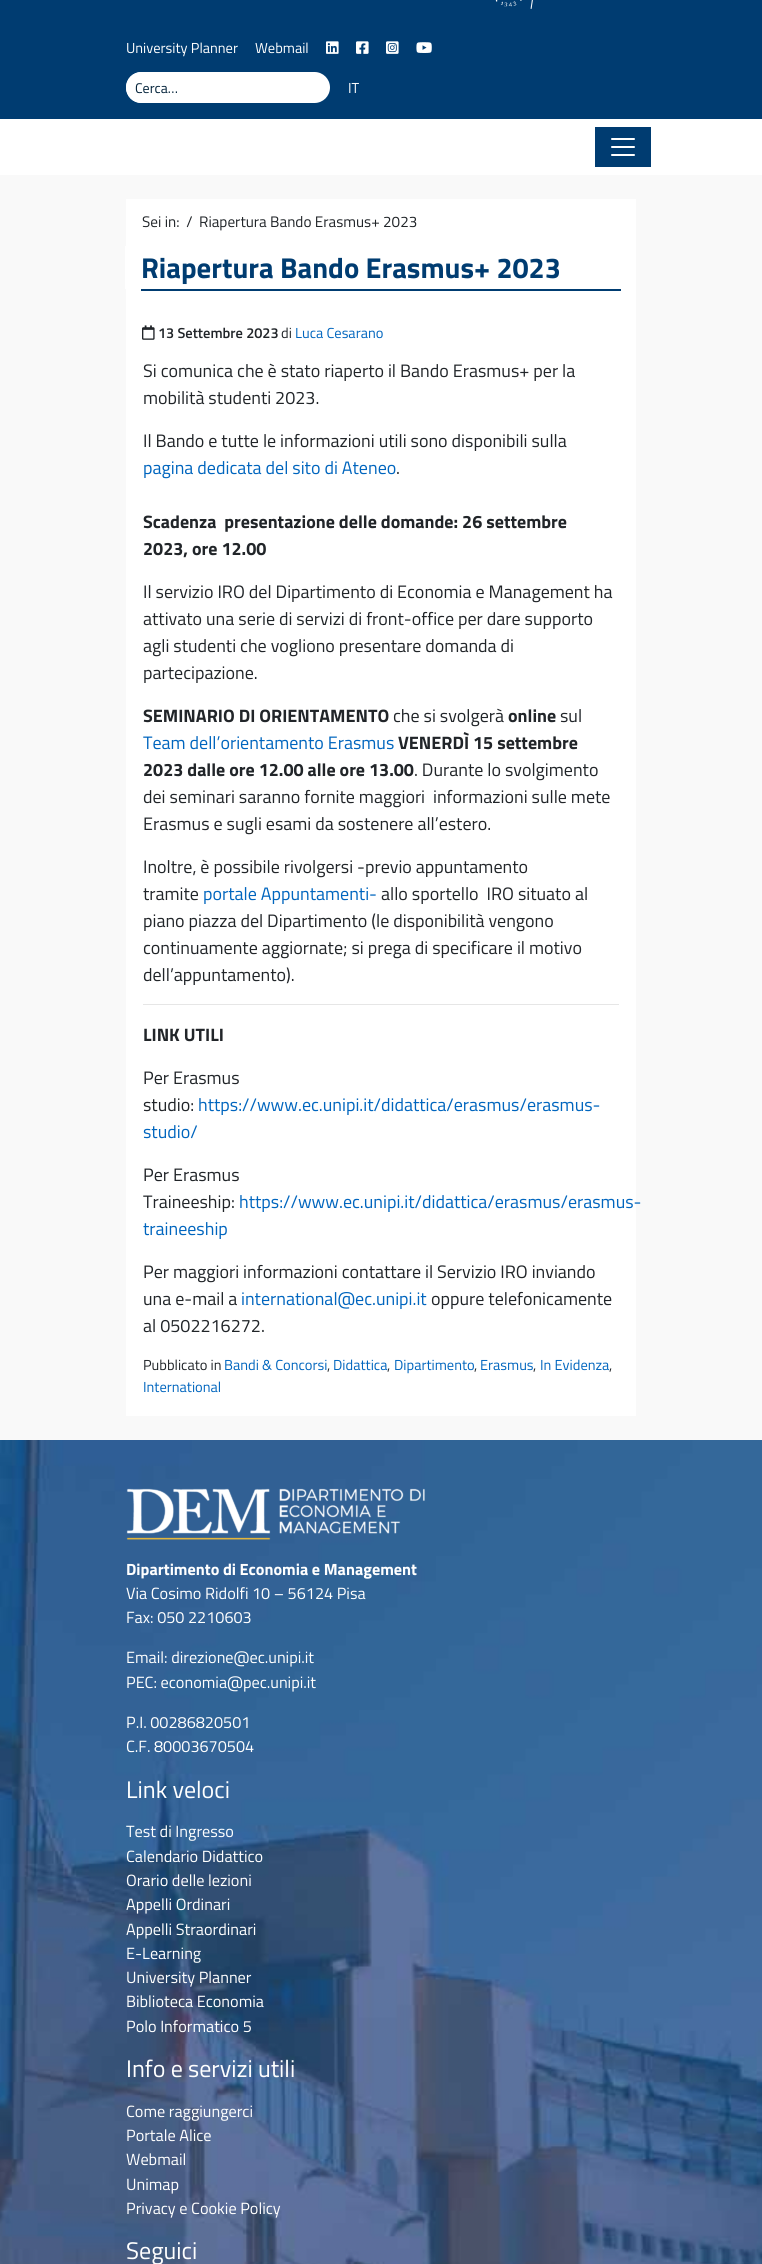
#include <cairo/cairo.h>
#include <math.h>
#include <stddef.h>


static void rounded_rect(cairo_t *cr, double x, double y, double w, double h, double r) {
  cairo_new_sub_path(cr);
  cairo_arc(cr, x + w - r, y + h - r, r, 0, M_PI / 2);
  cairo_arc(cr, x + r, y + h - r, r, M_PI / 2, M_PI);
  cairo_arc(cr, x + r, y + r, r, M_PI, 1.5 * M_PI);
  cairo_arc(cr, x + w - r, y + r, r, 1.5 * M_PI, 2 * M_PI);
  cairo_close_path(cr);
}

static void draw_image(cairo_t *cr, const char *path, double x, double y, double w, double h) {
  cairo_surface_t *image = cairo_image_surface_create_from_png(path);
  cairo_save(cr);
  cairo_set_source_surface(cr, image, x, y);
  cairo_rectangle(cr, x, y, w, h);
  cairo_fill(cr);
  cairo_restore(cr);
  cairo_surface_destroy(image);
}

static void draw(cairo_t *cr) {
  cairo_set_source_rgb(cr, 249 / 255.0, 249 / 255.0, 249 / 255.0);
  cairo_paint(cr);
  cairo_set_source_rgb(cr, 0, 60 / 255.0, 113 / 255.0);
  cairo_rectangle(cr, 0, 0, 762, 119);
  cairo_fill(cr);
  draw_image(cr, "images/1.png", 495, 0, 38, 9);
  draw_image(cr, "images/2.png", 326, 41, 13, 13);
  draw_image(cr, "images/3.png", 356, 41, 13, 13);
  draw_image(cr, "images/4.png", 386, 41, 13, 13);
  draw_image(cr, "images/5.png", 416, 42, 16, 11);
  cairo_set_source_rgb(cr, 1, 1, 1);
  rounded_rect(cr, 126, 72, 204, 31, 15.5);
  cairo_fill(cr);
  cairo_new_path(cr);
  cairo_move_to(cr, 141.5, 72.5);
  cairo_line_to(cr, 294.5, 72.5);
  cairo_line_to(cr, 294.5, 102.5);
  cairo_line_to(cr, 141.5, 102.5);
  cairo_curve_to(cr, 133, 102.5, 126.5, 96, 126.5, 87.5);
  cairo_curve_to(cr, 126.5, 79, 133, 72.5, 141.5, 72.5);
  cairo_close_path(cr);
  cairo_set_line_width(cr, 1);
  cairo_stroke(cr);
  cairo_rectangle(cr, 0, 119, 762, 56);
  cairo_fill(cr);
  cairo_set_source_rgb(cr, 0, 60 / 255.0, 113 / 255.0);
  cairo_rectangle(cr, 595, 127, 56, 40);
  cairo_fill(cr);
  draw_image(cr, "images/6.png", 611, 138, 24, 18);
  cairo_set_source_rgb(cr, 1, 1, 1);
  cairo_rectangle(cr, 126, 199, 510, 1217);
  cairo_fill(cr);
  cairo_set_source_rgb(cr, 0, 60 / 255.0, 113 / 255.0);
  cairo_rectangle(cr, 141, 289, 480, 2);
  cairo_fill(cr);
  cairo_set_source_rgb(cr, 1, 1, 1);
  cairo_rectangle(cr, 125, 246, 1, 43);
  cairo_fill(cr);
  draw_image(cr, "images/7.png", 142, 325, 13, 15);
  cairo_set_source_rgb(cr, 230 / 255.0, 230 / 255.0, 230 / 255.0);
  cairo_rectangle(cr, 143, 1004, 476, 1);
  cairo_fill(cr);
  draw_image(cr, "images/8.png", 0, 1440, 762, 824);
  draw_image(cr, "images/9.png", 126, 1488, 299, 52);
  cairo_select_font_face(cr, "Titillium Web", CAIRO_FONT_SLANT_NORMAL, CAIRO_FONT_WEIGHT_NORMAL);
  cairo_set_font_size(cr, 14.5);
  cairo_set_source_rgb(cr, 1, 1, 1);
  cairo_move_to(cr, 126, 53);
  cairo_show_text(cr, "University Planner");
  cairo_move_to(cr, 255, 53);
  cairo_show_text(cr, "Webmail");
  cairo_set_font_size(cr, 14);
  cairo_set_source_rgb(cr, 0, 32 / 255.0, 56 / 255.0);
  cairo_move_to(cr, 135, 93);
  cairo_show_text(cr, "Cerca…");
  cairo_set_font_size(cr, 14.5);
  cairo_set_source_rgb(cr, 1, 1, 1);
  cairo_move_to(cr, 348, 93);
  cairo_show_text(cr, "IT");
  cairo_set_font_size(cr, 15.25);
  cairo_set_source_rgb(cr, 33 / 255.0, 37 / 255.0, 41 / 255.0);
  cairo_move_to(cr, 142, 227);
  cairo_show_text(cr, "Sei in:  /");
  cairo_move_to(cr, 199, 227);
  cairo_show_text(cr, "Riapertura Bando Erasmus+ 2023");
  cairo_select_font_face(cr, "Titillium Web", CAIRO_FONT_SLANT_NORMAL, CAIRO_FONT_WEIGHT_BOLD);
  cairo_set_font_size(cr, 28.75);
  cairo_set_source_rgb(cr, 0, 60 / 255.0, 113 / 255.0);
  cairo_move_to(cr, 141, 278);
  cairo_show_text(cr, "Riapertura Bando Erasmus+ 2023");
  cairo_select_font_face(cr, "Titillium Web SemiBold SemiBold", CAIRO_FONT_SLANT_NORMAL, CAIRO_FONT_WEIGHT_NORMAL);
  cairo_set_font_size(cr, 14.5);
  cairo_set_source_rgb(cr, 33 / 255.0, 37 / 255.0, 41 / 255.0);
  cairo_move_to(cr, 158, 338);
  cairo_show_text(cr, "13 Settembre 2023");
  cairo_select_font_face(cr, "Titillium Web", CAIRO_FONT_SLANT_NORMAL, CAIRO_FONT_WEIGHT_NORMAL);
  cairo_move_to(cr, 281, 338);
  cairo_show_text(cr, "di");
  cairo_set_source_rgb(cr, 0, 101 / 255.0, 190 / 255.0);
  cairo_move_to(cr, 295, 338);
  cairo_show_text(cr, "Luca Cesarano");
  cairo_set_font_size(cr, 18);
  cairo_set_source_rgb(cr, 33 / 255.0, 37 / 255.0, 41 / 255.0);
  cairo_move_to(cr, 143, 377);
  cairo_show_text(cr, "Si comunica che è stato riaperto il Bando Erasmus+ per la");
  cairo_move_to(cr, 143, 404);
  cairo_show_text(cr, "mobilità studenti 2023.");
  cairo_move_to(cr, 143, 447);
  cairo_show_text(cr, "Il Bando e tutte le informazioni utili sono disponibili sulla");
  cairo_set_source_rgb(cr, 0, 101 / 255.0, 190 / 255.0);
  cairo_move_to(cr, 143, 474);
  cairo_show_text(cr, "pagina dedicata del sito di Ateneo");
  cairo_set_source_rgb(cr, 33 / 255.0, 37 / 255.0, 41 / 255.0);
  cairo_move_to(cr, 396, 474);
  cairo_show_text(cr, ".");
  cairo_select_font_face(cr, "Titillium Web", CAIRO_FONT_SLANT_NORMAL, CAIRO_FONT_WEIGHT_BOLD);
  cairo_move_to(cr, 143, 528);
  cairo_show_text(cr, "Scadenza  presentazione delle domande: 26 settembre");
  cairo_move_to(cr, 143, 555);
  cairo_show_text(cr, "2023, ore 12.00");
  cairo_select_font_face(cr, "Titillium Web", CAIRO_FONT_SLANT_NORMAL, CAIRO_FONT_WEIGHT_NORMAL);
  cairo_move_to(cr, 143, 598);
  cairo_show_text(cr, "Il servizio IRO del Dipartimento di Economia e Management ha");
  cairo_move_to(cr, 143, 625);
  cairo_show_text(cr, "attivato una serie di servizi di front-office per dare supporto");
  cairo_move_to(cr, 143, 652);
  cairo_show_text(cr, "agli studenti che vogliono presentare domanda di");
  cairo_move_to(cr, 143, 679);
  cairo_show_text(cr, "partecipazione.");
  cairo_select_font_face(cr, "Titillium Web", CAIRO_FONT_SLANT_NORMAL, CAIRO_FONT_WEIGHT_BOLD);
  cairo_move_to(cr, 143, 722);
  cairo_show_text(cr, "SEMINARIO DI ORIENTAMENTO");
  cairo_select_font_face(cr, "Titillium Web", CAIRO_FONT_SLANT_NORMAL, CAIRO_FONT_WEIGHT_NORMAL);
  cairo_move_to(cr, 393, 722);
  cairo_show_text(cr, "che si svolgerà");
  cairo_select_font_face(cr, "Titillium Web", CAIRO_FONT_SLANT_NORMAL, CAIRO_FONT_WEIGHT_BOLD);
  cairo_move_to(cr, 508, 722);
  cairo_show_text(cr, "online");
  cairo_select_font_face(cr, "Titillium Web", CAIRO_FONT_SLANT_NORMAL, CAIRO_FONT_WEIGHT_NORMAL);
  cairo_move_to(cr, 560, 722);
  cairo_show_text(cr, "sul");
  cairo_set_source_rgb(cr, 0, 101 / 255.0, 190 / 255.0);
  cairo_move_to(cr, 143, 749);
  cairo_show_text(cr, "Team dell’orientamento Erasmus");
  cairo_select_font_face(cr, "Titillium Web", CAIRO_FONT_SLANT_NORMAL, CAIRO_FONT_WEIGHT_BOLD);
  cairo_set_source_rgb(cr, 33 / 255.0, 37 / 255.0, 41 / 255.0);
  cairo_move_to(cr, 398, 749);
  cairo_show_text(cr, "VENERDÌ 15 settembre");
  cairo_move_to(cr, 143, 776);
  cairo_show_text(cr, "2023 dalle ore 12.00 alle ore 13.00");
  cairo_select_font_face(cr, "Titillium Web", CAIRO_FONT_SLANT_NORMAL, CAIRO_FONT_WEIGHT_NORMAL);
  cairo_move_to(cr, 414, 776);
  cairo_show_text(cr, ". Durante lo svolgimento");
  cairo_move_to(cr, 143, 803);
  cairo_show_text(cr, "dei seminari saranno fornite maggiori  informazioni sulle mete");
  cairo_move_to(cr, 143, 830);
  cairo_show_text(cr, "Erasmus e sugli esami da sostenere all’estero.");
  cairo_move_to(cr, 143, 873);
  cairo_show_text(cr, "Inoltre, è possibile rivolgersi -previo appuntamento");
  cairo_move_to(cr, 143, 900);
  cairo_show_text(cr, "tramite");
  cairo_set_source_rgb(cr, 0, 101 / 255.0, 190 / 255.0);
  cairo_move_to(cr, 203, 900);
  cairo_show_text(cr, "portale Appuntamenti-");
  cairo_set_source_rgb(cr, 33 / 255.0, 37 / 255.0, 41 / 255.0);
  cairo_move_to(cr, 381, 900);
  cairo_show_text(cr, "allo sportello  IRO situato al");
  cairo_move_to(cr, 143, 927);
  cairo_show_text(cr, "piano piazza del Dipartimento (le disponibilità vengono");
  cairo_move_to(cr, 143, 954);
  cairo_show_text(cr, "continuamente aggiornate; si prega di specificare il motivo");
  cairo_move_to(cr, 143, 981);
  cairo_show_text(cr, "dell’appuntamento).");
  cairo_select_font_face(cr, "Titillium Web", CAIRO_FONT_SLANT_NORMAL, CAIRO_FONT_WEIGHT_BOLD);
  cairo_move_to(cr, 143, 1041);
  cairo_show_text(cr, "LINK UTILI");
  cairo_select_font_face(cr, "Titillium Web", CAIRO_FONT_SLANT_NORMAL, CAIRO_FONT_WEIGHT_NORMAL);
  cairo_move_to(cr, 143, 1084);
  cairo_show_text(cr, "Per Erasmus");
  cairo_move_to(cr, 143, 1111);
  cairo_show_text(cr, "studio:");
  cairo_set_source_rgb(cr, 0, 101 / 255.0, 190 / 255.0);
  cairo_move_to(cr, 198, 1111);
  cairo_show_text(cr, "https://www.ec.unipi.it/didattica/erasmus/erasmus-");
  cairo_move_to(cr, 143, 1138);
  cairo_show_text(cr, "studio/");
  cairo_set_source_rgb(cr, 33 / 255.0, 37 / 255.0, 41 / 255.0);
  cairo_move_to(cr, 143, 1181);
  cairo_show_text(cr, "Per Erasmus");
  cairo_move_to(cr, 143, 1208);
  cairo_show_text(cr, "Traineeship:");
  cairo_set_source_rgb(cr, 0, 101 / 255.0, 190 / 255.0);
  cairo_move_to(cr, 239, 1208);
  cairo_show_text(cr, "https://www.ec.unipi.it/didattica/erasmus/erasmus-");
  cairo_move_to(cr, 143, 1235);
  cairo_show_text(cr, "traineeship");
  cairo_set_source_rgb(cr, 33 / 255.0, 37 / 255.0, 41 / 255.0);
  cairo_move_to(cr, 143, 1278);
  cairo_show_text(cr, "Per maggiori informazioni contattare il Servizio IRO inviando");
  cairo_move_to(cr, 143, 1305);
  cairo_show_text(cr, "una e-mail a");
  cairo_set_source_rgb(cr, 0, 101 / 255.0, 190 / 255.0);
  cairo_move_to(cr, 241, 1305);
  cairo_show_text(cr, "international@ec.unipi.it");
  cairo_set_source_rgb(cr, 33 / 255.0, 37 / 255.0, 41 / 255.0);
  cairo_move_to(cr, 431, 1305);
  cairo_show_text(cr, "oppure telefonicamente");
  cairo_move_to(cr, 143, 1332);
  cairo_show_text(cr, "al 0502216272.");
  cairo_set_font_size(cr, 14.5);
  cairo_move_to(cr, 143, 1370);
  cairo_show_text(cr, "Pubblicato in");
  cairo_set_source_rgb(cr, 0, 101 / 255.0, 190 / 255.0);
  cairo_move_to(cr, 224, 1370);
  cairo_show_text(cr, "Bandi & Concorsi");
  cairo_set_source_rgb(cr, 33 / 255.0, 37 / 255.0, 41 / 255.0);
  cairo_move_to(cr, 327, 1370);
  cairo_show_text(cr, ",");
  cairo_set_source_rgb(cr, 0, 101 / 255.0, 190 / 255.0);
  cairo_move_to(cr, 333, 1370);
  cairo_show_text(cr, "Didattica");
  cairo_set_source_rgb(cr, 33 / 255.0, 37 / 255.0, 41 / 255.0);
  cairo_move_to(cr, 387, 1370);
  cairo_show_text(cr, ",");
  cairo_set_source_rgb(cr, 0, 101 / 255.0, 190 / 255.0);
  cairo_move_to(cr, 394, 1370);
  cairo_show_text(cr, "Dipartimento");
  cairo_set_source_rgb(cr, 33 / 255.0, 37 / 255.0, 41 / 255.0);
  cairo_move_to(cr, 474, 1370);
  cairo_show_text(cr, ",");
  cairo_set_source_rgb(cr, 0, 101 / 255.0, 190 / 255.0);
  cairo_move_to(cr, 480, 1370);
  cairo_show_text(cr, "Erasmus");
  cairo_set_source_rgb(cr, 33 / 255.0, 37 / 255.0, 41 / 255.0);
  cairo_move_to(cr, 533, 1370);
  cairo_show_text(cr, ",");
  cairo_set_source_rgb(cr, 0, 101 / 255.0, 190 / 255.0);
  cairo_move_to(cr, 540, 1370);
  cairo_show_text(cr, "In Evidenza");
  cairo_set_source_rgb(cr, 33 / 255.0, 37 / 255.0, 41 / 255.0);
  cairo_move_to(cr, 609, 1370);
  cairo_show_text(cr, ",");
  cairo_set_source_rgb(cr, 0, 101 / 255.0, 190 / 255.0);
  cairo_move_to(cr, 143, 1392);
  cairo_show_text(cr, "International");
  cairo_select_font_face(cr, "Titillium Web", CAIRO_FONT_SLANT_NORMAL, CAIRO_FONT_WEIGHT_BOLD);
  cairo_set_font_size(cr, 16.25);
  cairo_set_source_rgb(cr, 1, 1, 1);
  cairo_move_to(cr, 126, 1575);
  cairo_show_text(cr, "Dipartimento di Economia e Management");
  cairo_select_font_face(cr, "Titillium Web", CAIRO_FONT_SLANT_NORMAL, CAIRO_FONT_WEIGHT_NORMAL);
  cairo_move_to(cr, 126, 1599);
  cairo_show_text(cr, "Via Cosimo Ridolfi 10 – 56124 Pisa");
  cairo_move_to(cr, 126, 1623);
  cairo_show_text(cr, "Fax: 050 2210603");
  cairo_move_to(cr, 126, 1663);
  cairo_show_text(cr, "Email: direzione@ec.unipi.it");
  cairo_move_to(cr, 126, 1688);
  cairo_show_text(cr, "PEC: economia@pec.unipi.it");
  cairo_move_to(cr, 126, 1728);
  cairo_show_text(cr, "P.I. 00286820501");
  cairo_move_to(cr, 126, 1752);
  cairo_show_text(cr, "C.F. 80003670504");
  cairo_set_font_size(cr, 24);
  cairo_move_to(cr, 126, 1798);
  cairo_show_text(cr, "Link veloci");
  cairo_set_font_size(cr, 16.25);
  cairo_move_to(cr, 126, 1837);
  cairo_show_text(cr, "Test di Ingresso");
  cairo_move_to(cr, 126, 1862);
  cairo_show_text(cr, "Calendario Didattico");
  cairo_move_to(cr, 126, 1886);
  cairo_show_text(cr, "Orario delle lezioni");
  cairo_move_to(cr, 126, 1910);
  cairo_show_text(cr, "Appelli Ordinari");
  cairo_move_to(cr, 126, 1935);
  cairo_show_text(cr, "Appelli Straordinari");
  cairo_move_to(cr, 126, 1959);
  cairo_show_text(cr, "E-Learning");
  cairo_move_to(cr, 126, 1983);
  cairo_show_text(cr, "University Planner");
  cairo_move_to(cr, 126, 2007);
  cairo_show_text(cr, "Biblioteca Economia");
  cairo_move_to(cr, 126, 2032);
  cairo_show_text(cr, "Polo Informatico 5");
  cairo_set_font_size(cr, 24);
  cairo_move_to(cr, 126, 2077);
  cairo_show_text(cr, "Info e servizi utili");
  cairo_set_font_size(cr, 16.25);
  cairo_move_to(cr, 126, 2117);
  cairo_show_text(cr, "Come raggiungerci");
  cairo_move_to(cr, 126, 2141);
  cairo_show_text(cr, "Portale Alice");
  cairo_move_to(cr, 126, 2165);
  cairo_show_text(cr, "Webmail");
  cairo_move_to(cr, 126, 2190);
  cairo_show_text(cr, "Unimap");
  cairo_move_to(cr, 126, 2214);
  cairo_show_text(cr, "Privacy e Cookie Policy");
  cairo_set_font_size(cr, 24);
  cairo_move_to(cr, 126, 2259);
  cairo_show_text(cr, "Seguici");
}

int main(void) {
  cairo_surface_t *surface = cairo_image_surface_create(CAIRO_FORMAT_RGB24, 762, 2264);
  cairo_t *cr = cairo_create(surface);
  cairo_font_options_t *options = cairo_font_options_create();
  cairo_font_options_set_hint_metrics(options, CAIRO_HINT_METRICS_OFF);
  cairo_font_options_set_hint_style(options, CAIRO_HINT_STYLE_NONE);
  cairo_set_font_options(cr, options);
  cairo_set_miter_limit(cr, 4);
  draw(cr);
  cairo_surface_write_to_png(surface, "out.png");
  cairo_font_options_destroy(options);
  cairo_destroy(cr);
  cairo_surface_destroy(surface);
  return 0;
}
